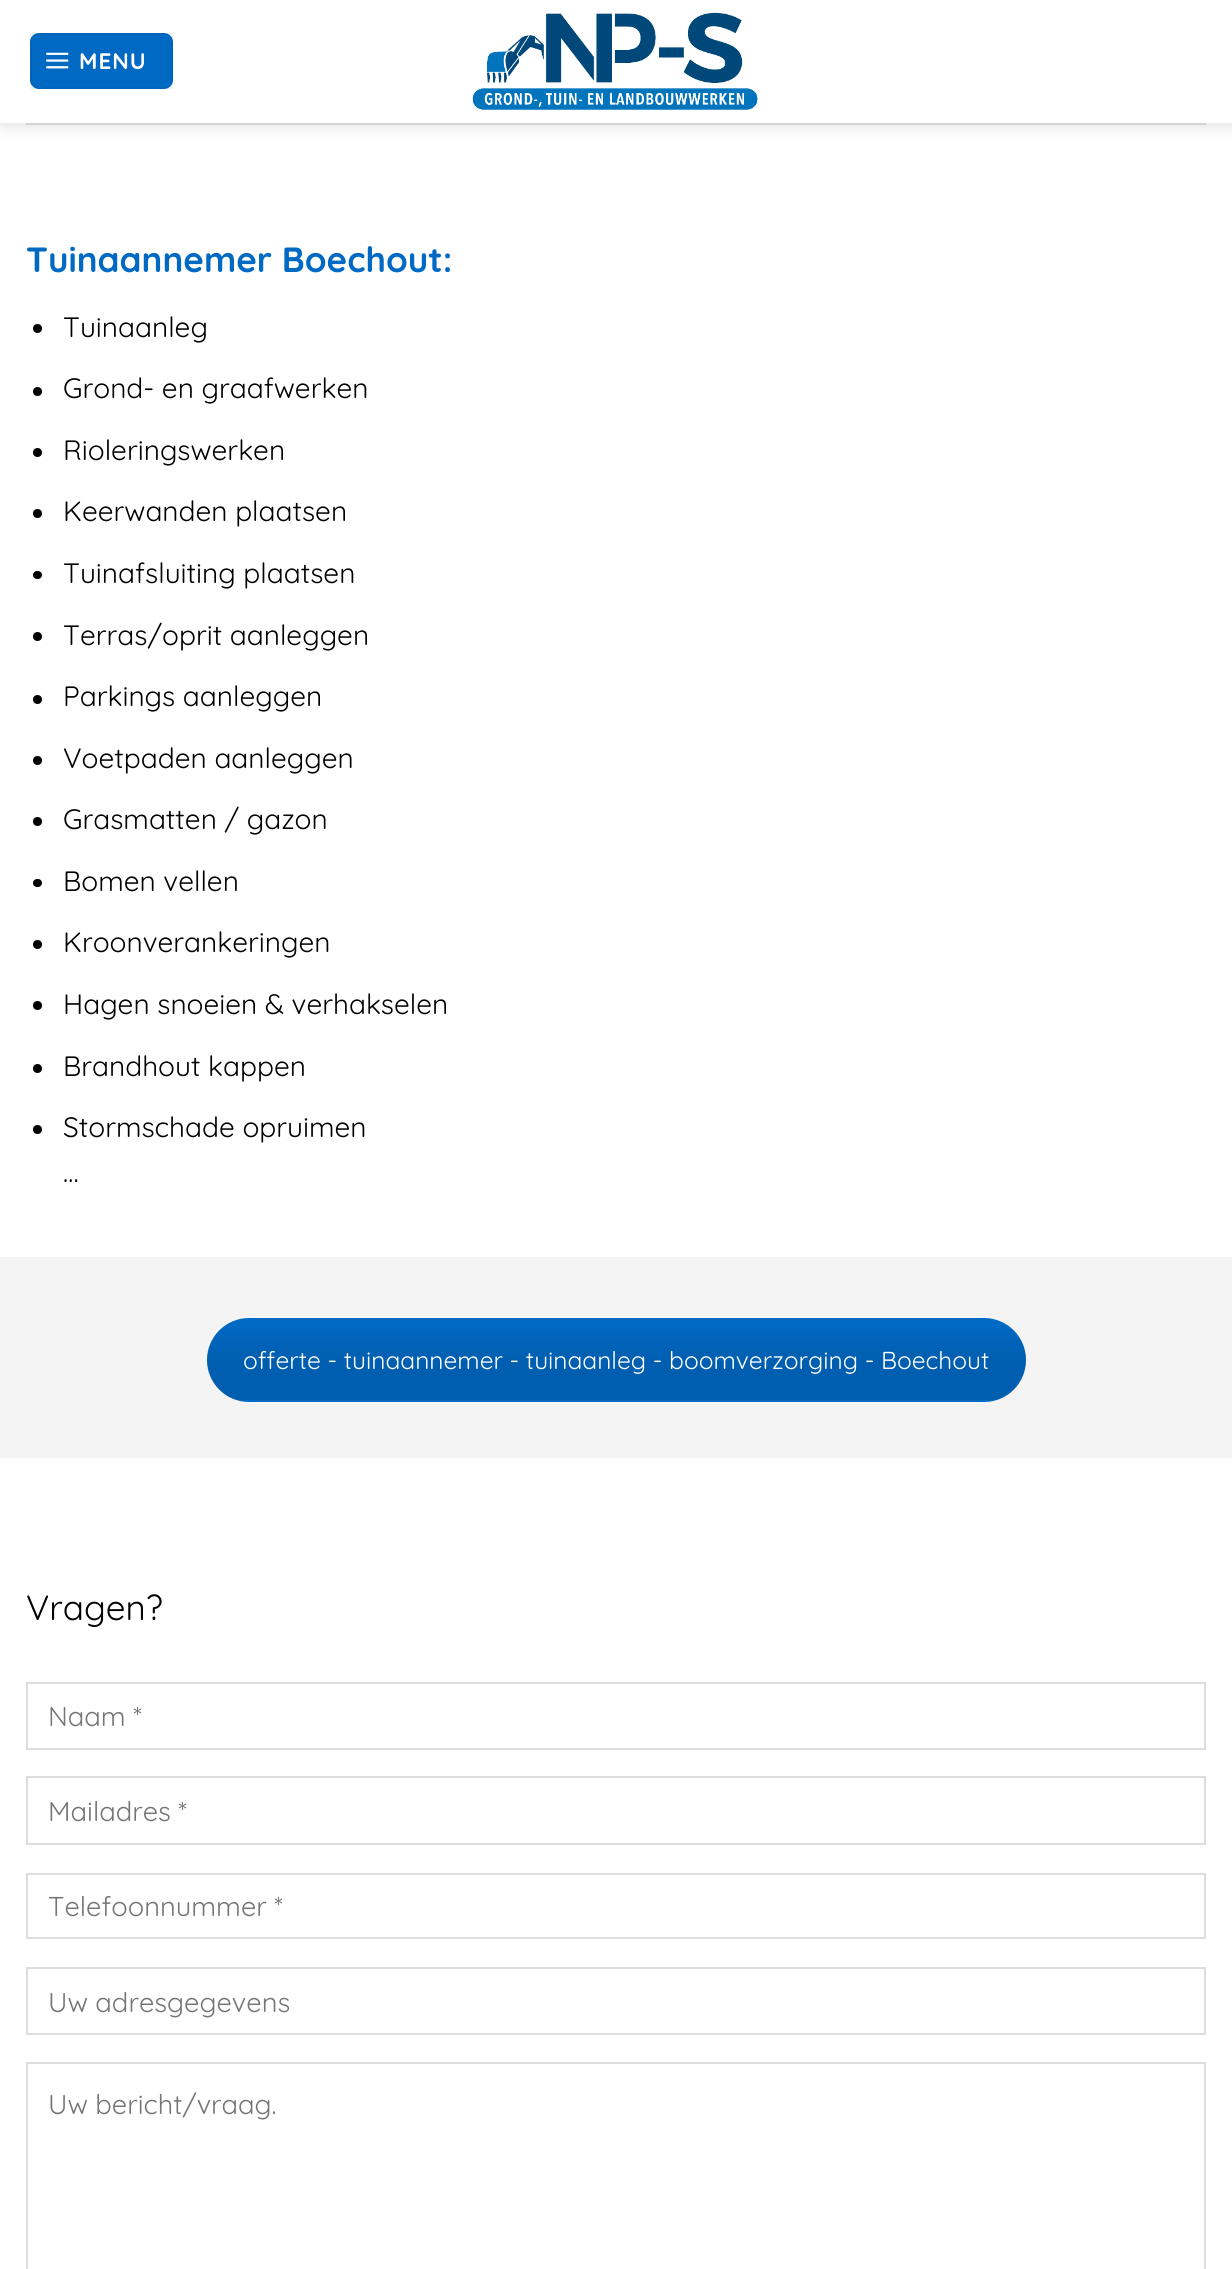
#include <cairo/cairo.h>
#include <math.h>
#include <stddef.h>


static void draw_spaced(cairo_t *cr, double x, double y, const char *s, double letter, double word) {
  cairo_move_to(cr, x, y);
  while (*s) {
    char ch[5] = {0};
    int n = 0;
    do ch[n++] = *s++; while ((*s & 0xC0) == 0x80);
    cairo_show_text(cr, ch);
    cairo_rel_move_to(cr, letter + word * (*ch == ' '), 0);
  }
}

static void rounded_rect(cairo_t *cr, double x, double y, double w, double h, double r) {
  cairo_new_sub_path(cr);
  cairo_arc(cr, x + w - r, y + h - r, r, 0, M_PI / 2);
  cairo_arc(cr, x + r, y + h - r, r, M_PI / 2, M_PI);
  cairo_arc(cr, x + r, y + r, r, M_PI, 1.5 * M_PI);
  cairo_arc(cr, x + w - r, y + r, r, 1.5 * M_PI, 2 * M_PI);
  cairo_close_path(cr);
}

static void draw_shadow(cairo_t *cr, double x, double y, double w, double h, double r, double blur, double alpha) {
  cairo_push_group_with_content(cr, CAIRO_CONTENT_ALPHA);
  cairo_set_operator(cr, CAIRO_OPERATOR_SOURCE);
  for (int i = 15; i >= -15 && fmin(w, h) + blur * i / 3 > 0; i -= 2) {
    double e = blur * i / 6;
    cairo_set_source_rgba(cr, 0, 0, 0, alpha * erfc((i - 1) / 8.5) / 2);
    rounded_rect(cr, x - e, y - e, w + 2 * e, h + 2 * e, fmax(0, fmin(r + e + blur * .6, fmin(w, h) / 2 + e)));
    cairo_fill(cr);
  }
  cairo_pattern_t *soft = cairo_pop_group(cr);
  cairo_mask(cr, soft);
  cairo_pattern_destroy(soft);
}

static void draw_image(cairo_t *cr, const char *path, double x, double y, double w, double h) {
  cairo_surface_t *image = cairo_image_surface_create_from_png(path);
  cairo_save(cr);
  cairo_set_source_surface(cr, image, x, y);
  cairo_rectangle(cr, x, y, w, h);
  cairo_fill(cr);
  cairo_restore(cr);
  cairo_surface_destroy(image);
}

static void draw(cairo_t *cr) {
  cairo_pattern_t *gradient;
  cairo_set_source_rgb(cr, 1, 1, 1);
  cairo_paint(cr);
  cairo_save(cr);
  cairo_set_fill_rule(cr, CAIRO_FILL_RULE_EVEN_ODD);
  cairo_new_path(cr);
  cairo_move_to(cr, 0, 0);
  cairo_line_to(cr, 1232, 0);
  cairo_line_to(cr, 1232, 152);
  cairo_line_to(cr, 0, 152);
  cairo_close_path(cr);
  cairo_move_to(cr, 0, 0);
  cairo_line_to(cr, 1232, 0);
  cairo_line_to(cr, 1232, 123);
  cairo_line_to(cr, 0, 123);
  cairo_close_path(cr);
  cairo_clip(cr);
  cairo_set_source_rgb(cr, 0, 0, 0);
  draw_shadow(cr, 2, 2, 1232, 122, 0, 9, 0.15);
  cairo_restore(cr);
  cairo_set_source_rgb(cr, 0, 105 / 255.0, 196 / 255.0);
  rounded_rect(cr, 30, 33, 143, 56, 9);
  cairo_fill(cr);
  cairo_rectangle(cr, 31, 34, 141, 54);
  cairo_set_source_rgba(cr, 0, 0, 0, 0.05);
  cairo_stroke(cr);
  draw_image(cr, "images/1.png", 46, 52, 23, 17);
  draw_image(cr, "images/2.png", 453, 0, 326, 110);
  cairo_set_source_rgb(cr, 212 / 255.0, 212 / 255.0, 212 / 255.0);
  cairo_rectangle(cr, 26, 123, 1180, 2);
  cairo_fill(cr);
  cairo_set_source_rgba(cr, 1, 1, 1, 0.9);
  cairo_rectangle(cr, 0, 122, 1232, 1);
  cairo_fill(cr);
  cairo_set_source_rgb(cr, 0, 0, 0);
  cairo_arc(cr, 37.5, 328.5, 4.5, 0, 2 * M_PI);
  cairo_fill(cr);
  cairo_arc(cr, 37.5, 391.5, 4.5, 0, 2 * M_PI);
  cairo_fill(cr);
  cairo_arc(cr, 37.5, 452.5, 4.5, 0, 2 * M_PI);
  cairo_fill(cr);
  cairo_arc(cr, 37.5, 513.5, 4.5, 0, 2 * M_PI);
  cairo_fill(cr);
  rounded_rect(cr, 33, 571, 9, 8, 4);
  cairo_fill(cr);
  cairo_arc(cr, 37.5, 636.5, 4.5, 0, 2 * M_PI);
  cairo_fill(cr);
  cairo_arc(cr, 37.5, 699.5, 4.5, 0, 2 * M_PI);
  cairo_fill(cr);
  cairo_arc(cr, 37.5, 760.5, 4.5, 0, 2 * M_PI);
  cairo_fill(cr);
  cairo_arc(cr, 37.5, 821.5, 4.5, 0, 2 * M_PI);
  cairo_fill(cr);
  rounded_rect(cr, 33, 879, 9, 8, 4);
  cairo_fill(cr);
  cairo_arc(cr, 37.5, 944.5, 4.5, 0, 2 * M_PI);
  cairo_fill(cr);
  cairo_arc(cr, 37.5, 1005.5, 4.5, 0, 2 * M_PI);
  cairo_fill(cr);
  cairo_arc(cr, 37.5, 1068.5, 4.5, 0, 2 * M_PI);
  cairo_fill(cr);
  cairo_arc(cr, 37.5, 1129.5, 4.5, 0, 2 * M_PI);
  cairo_fill(cr);
  cairo_set_source_rgb(cr, 244 / 255.0, 244 / 255.0, 244 / 255.0);
  cairo_rectangle(cr, 0, 1257, 1232, 201);
  cairo_fill(cr);
  cairo_set_source_rgb(cr, 0, 105 / 255.0, 196 / 255.0);
  rounded_rect(cr, 207, 1318, 819, 84, 42);
  cairo_fill(cr);
  cairo_save(cr);
  rounded_rect(cr, 207, 1318, 819, 84, 42);
  cairo_clip(cr);
  gradient = cairo_pattern_create_linear(1024, 1320, 1024, 1400);
  cairo_pattern_add_color_stop_rgba(gradient, 0, 0, 0, 0, 0);
  cairo_pattern_add_color_stop_rgba(gradient, 0.5, 0, 0, 0, 0.1);
  cairo_pattern_add_color_stop_rgba(gradient, 1, 0, 0, 0, 0.1);
  cairo_set_source(cr, gradient);
  cairo_pattern_destroy(gradient);
  cairo_rectangle(cr, 207, 1329, 819, 71);
  cairo_fill(cr);
  cairo_restore(cr);
  cairo_rectangle(cr, 27, 1683, 1178, 66);
  cairo_set_source_rgb(cr, 221 / 255.0, 221 / 255.0, 221 / 255.0);
  cairo_stroke(cr);
  cairo_rectangle(cr, 27, 1777, 1178, 67);
  cairo_stroke(cr);
  cairo_rectangle(cr, 27, 1874, 1178, 64);
  cairo_stroke(cr);
  cairo_rectangle(cr, 27, 1968, 1178, 66);
  cairo_stroke(cr);
  cairo_rectangle(cr, 27, 2063, 1178, 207);
  cairo_stroke(cr);
  cairo_select_font_face(cr, "Quicksand", CAIRO_FONT_SLANT_NORMAL, CAIRO_FONT_WEIGHT_BOLD);
  cairo_set_font_size(cr, 22.5);
  cairo_set_source_rgb(cr, 1, 1, 1);
  draw_spaced(cr, 79, 69, "MENU", 1, 0);
  cairo_set_font_size(cr, 35);
  cairo_set_source_rgb(cr, 0, 105 / 255.0, 196 / 255.0);
  cairo_move_to(cr, 26, 272);
  cairo_show_text(cr, "Tuinaannemer Boechout:");
  cairo_select_font_face(cr, "Quicksand", CAIRO_FONT_SLANT_NORMAL, CAIRO_FONT_WEIGHT_NORMAL);
  cairo_set_font_size(cr, 28);
  cairo_set_source_rgb(cr, 0, 0, 0);
  cairo_move_to(cr, 63, 337);
  cairo_show_text(cr, "Tuinaanleg");
  cairo_move_to(cr, 63, 398);
  cairo_show_text(cr, "Grond- en graafwerken");
  cairo_move_to(cr, 63, 460);
  cairo_show_text(cr, "Rioleringswerken");
  cairo_move_to(cr, 63, 521);
  cairo_show_text(cr, "Keerwanden plaatsen");
  cairo_move_to(cr, 63, 583);
  cairo_show_text(cr, "Tuinafsluiting plaatsen");
  cairo_move_to(cr, 63, 645);
  cairo_show_text(cr, "Terras/oprit aanleggen");
  cairo_move_to(cr, 63, 706);
  cairo_show_text(cr, "Parkings aanleggen");
  cairo_move_to(cr, 63, 768);
  cairo_show_text(cr, "Voetpaden aanleggen");
  cairo_move_to(cr, 63, 829);
  cairo_show_text(cr, "Grasmatten / gazon");
  cairo_move_to(cr, 63, 891);
  cairo_show_text(cr, "Bomen vellen");
  cairo_move_to(cr, 63, 952);
  cairo_show_text(cr, "Kroonverankeringen");
  cairo_move_to(cr, 63, 1014);
  cairo_show_text(cr, "Hagen snoeien & verhakselen");
  cairo_move_to(cr, 63, 1076);
  cairo_show_text(cr, "Brandhout kappen");
  cairo_move_to(cr, 63, 1137);
  cairo_show_text(cr, "Stormschade opruimen");
  cairo_move_to(cr, 63, 1182);
  cairo_show_text(cr, "…");
  cairo_set_font_size(cr, 24.5);
  cairo_set_source_rgb(cr, 1, 1, 1);
  cairo_move_to(cr, 243, 1369);
  cairo_show_text(cr, "offerte - tuinaannemer - tuinaanleg - boomverzorging - Boechout");
  cairo_set_font_size(cr, 35);
  cairo_set_source_rgb(cr, 0, 0, 0);
  cairo_move_to(cr, 26, 1620);
  cairo_show_text(cr, "Vragen?");
  cairo_set_font_size(cr, 27.25);
  cairo_set_source_rgb(cr, 117 / 255.0, 117 / 255.0, 117 / 255.0);
  cairo_move_to(cr, 48, 1726);
  cairo_show_text(cr, "Naam *");
  cairo_move_to(cr, 48, 1821);
  cairo_show_text(cr, "Mailadres *");
  cairo_move_to(cr, 48, 1916);
  cairo_show_text(cr, "Telefoonnummer *");
  cairo_move_to(cr, 48, 2012);
  cairo_show_text(cr, "Uw adresgegevens");
  cairo_move_to(cr, 48, 2114);
  cairo_show_text(cr, "Uw bericht/vraag.");
}

int main(void) {
  cairo_surface_t *surface = cairo_image_surface_create(CAIRO_FORMAT_RGB24, 1232, 2269);
  cairo_t *cr = cairo_create(surface);
  cairo_font_options_t *options = cairo_font_options_create();
  cairo_font_options_set_hint_metrics(options, CAIRO_HINT_METRICS_OFF);
  cairo_font_options_set_hint_style(options, CAIRO_HINT_STYLE_NONE);
  cairo_set_font_options(cr, options);
  cairo_set_miter_limit(cr, 4);
  draw(cr);
  cairo_surface_write_to_png(surface, "out.png");
  cairo_font_options_destroy(options);
  cairo_destroy(cr);
  cairo_surface_destroy(surface);
  return 0;
}
